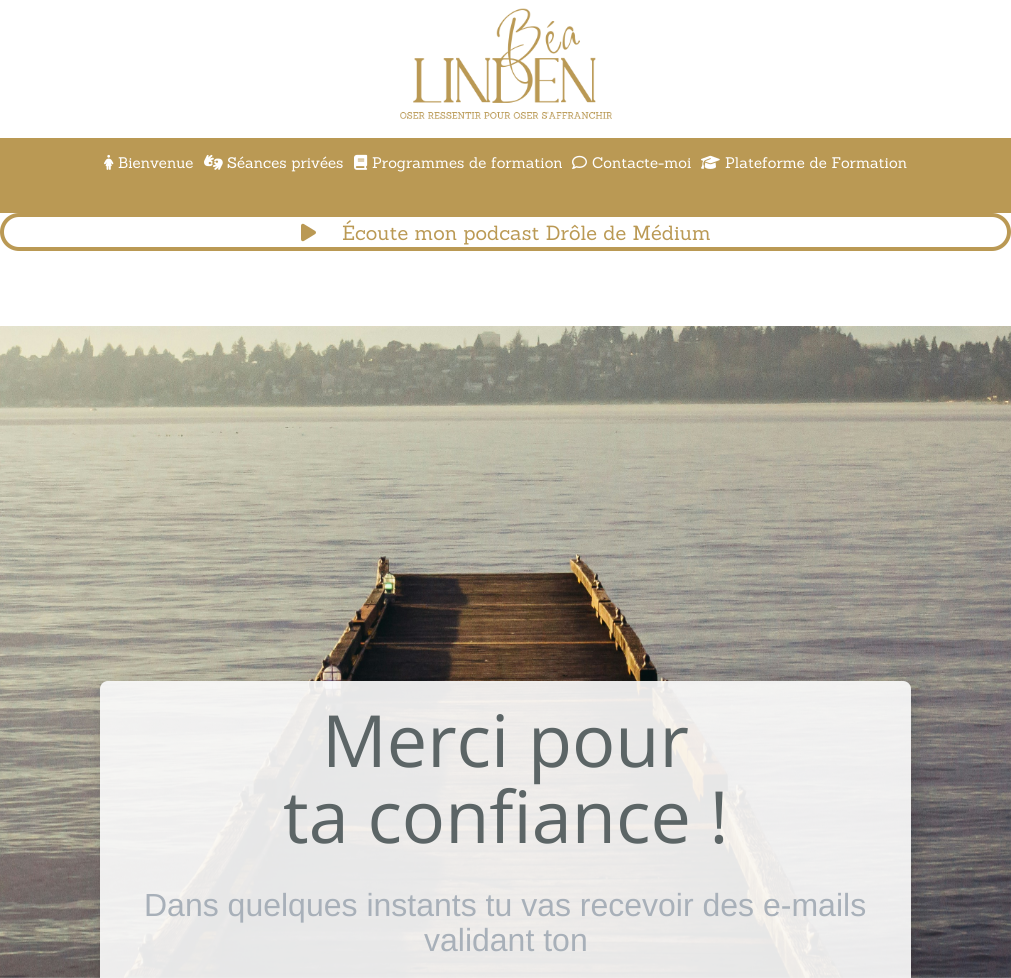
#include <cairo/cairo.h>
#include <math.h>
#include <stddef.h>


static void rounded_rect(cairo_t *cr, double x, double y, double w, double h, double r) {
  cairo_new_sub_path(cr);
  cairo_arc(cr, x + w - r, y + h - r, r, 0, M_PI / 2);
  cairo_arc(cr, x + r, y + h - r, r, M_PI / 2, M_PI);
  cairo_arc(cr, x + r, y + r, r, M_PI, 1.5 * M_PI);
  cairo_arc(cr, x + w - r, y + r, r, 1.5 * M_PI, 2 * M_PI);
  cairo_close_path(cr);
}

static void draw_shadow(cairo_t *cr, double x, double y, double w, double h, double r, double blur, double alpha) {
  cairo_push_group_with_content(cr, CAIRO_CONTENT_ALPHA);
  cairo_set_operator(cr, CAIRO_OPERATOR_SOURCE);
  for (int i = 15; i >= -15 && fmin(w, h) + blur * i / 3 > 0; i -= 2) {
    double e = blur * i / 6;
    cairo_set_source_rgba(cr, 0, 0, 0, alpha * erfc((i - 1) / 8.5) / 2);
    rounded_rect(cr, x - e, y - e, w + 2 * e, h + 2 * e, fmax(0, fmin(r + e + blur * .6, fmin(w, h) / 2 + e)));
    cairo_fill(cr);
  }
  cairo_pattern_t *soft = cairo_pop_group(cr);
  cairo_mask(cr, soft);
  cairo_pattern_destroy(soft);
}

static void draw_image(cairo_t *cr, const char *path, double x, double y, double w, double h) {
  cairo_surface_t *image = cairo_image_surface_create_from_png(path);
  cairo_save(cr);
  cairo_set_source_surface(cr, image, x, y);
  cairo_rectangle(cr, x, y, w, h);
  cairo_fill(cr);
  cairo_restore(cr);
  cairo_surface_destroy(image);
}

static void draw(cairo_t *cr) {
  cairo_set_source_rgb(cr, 1, 1, 1);
  cairo_paint(cr);
  draw_image(cr, "images/1.png", 400, 8, 212, 111);
  cairo_set_source_rgb(cr, 186 / 255.0, 153 / 255.0, 84 / 255.0);
  cairo_rectangle(cr, 0, 138, 1011, 75);
  cairo_fill(cr);
  draw_image(cr, "images/2.png", 104, 154, 10, 16);
  draw_image(cr, "images/3.png", 204, 154, 19, 16);
  draw_image(cr, "images/4.png", 354, 154, 14, 16);
  draw_image(cr, "images/5.png", 572, 155, 15, 14);
  draw_image(cr, "images/6.png", 701, 155, 19, 14);
  rounded_rect(cr, 2, 215, 1007, 34, 17);
  cairo_set_line_width(cr, 4);
  cairo_stroke(cr);
  draw_image(cr, "images/7.png", 301, 223, 15, 19);
  draw_image(cr, "images/8.png", 0, 326, 1011, 652);
  cairo_save(cr);
  cairo_set_fill_rule(cr, CAIRO_FILL_RULE_EVEN_ODD);
  cairo_new_path(cr);
  cairo_move_to(cr, 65, 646);
  cairo_line_to(cr, 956, 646);
  cairo_line_to(cr, 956, 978);
  cairo_line_to(cr, 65, 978);
  cairo_close_path(cr);
  cairo_move_to(cr, 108, 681);
  cairo_line_to(cr, 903, 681);
  cairo_curve_to(cr, 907.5, 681, 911, 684.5, 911, 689);
  cairo_line_to(cr, 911, 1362);
  cairo_curve_to(cr, 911, 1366.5, 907.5, 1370, 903, 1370);
  cairo_line_to(cr, 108, 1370);
  cairo_curve_to(cr, 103.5, 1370, 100, 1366.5, 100, 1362);
  cairo_line_to(cr, 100, 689);
  cairo_curve_to(cr, 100, 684.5, 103.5, 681, 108, 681);
  cairo_close_path(cr);
  cairo_clip(cr);
  cairo_set_source_rgb(cr, 0, 0, 0);
  draw_shadow(cr, 105, 686, 811, 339, 8, 13, 0.17);
  cairo_restore(cr);
  cairo_set_source_rgba(cr, 250 / 255.0, 250 / 255.0, 250 / 255.0, 0.92);
  rounded_rect(cr, 100, 681, 811, 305, 8);
  cairo_fill(cr);
  cairo_select_font_face(cr, "Sanchez", CAIRO_FONT_SLANT_NORMAL, CAIRO_FONT_WEIGHT_NORMAL);
  cairo_set_font_size(cr, 15);
  cairo_set_source_rgb(cr, 1, 1, 1);
  cairo_move_to(cr, 118, 168);
  cairo_show_text(cr, "Bienvenue");
  cairo_move_to(cr, 227, 168);
  cairo_show_text(cr, "Séances privées");
  cairo_move_to(cr, 372, 168);
  cairo_show_text(cr, "Programmes de formation");
  cairo_move_to(cr, 592, 168);
  cairo_show_text(cr, "Contacte-moi");
  cairo_move_to(cr, 725, 168);
  cairo_show_text(cr, "Plateforme de Formation");
  cairo_set_font_size(cr, 20);
  cairo_set_source_rgb(cr, 186 / 255.0, 153 / 255.0, 84 / 255.0);
  cairo_move_to(cr, 342, 240);
  cairo_show_text(cr, "Écoute mon podcast Drôle de Médium");
  cairo_select_font_face(cr, "Open Sans", CAIRO_FONT_SLANT_NORMAL, CAIRO_FONT_WEIGHT_NORMAL);
  cairo_set_font_size(cr, 72);
  cairo_set_source_rgb(cr, 92 / 255.0, 101 / 255.0, 102 / 255.0);
  cairo_move_to(cr, 322, 767);
  cairo_show_text(cr, "Merci pour");
  cairo_move_to(cr, 283, 843);
  cairo_show_text(cr, "ta confiance !");
  cairo_select_font_face(cr, "Liberation Sans", CAIRO_FONT_SLANT_NORMAL, CAIRO_FONT_WEIGHT_NORMAL);
  cairo_set_font_size(cr, 32);
  cairo_set_source_rgb(cr, 168 / 255.0, 176 / 255.0, 185 / 255.0);
  cairo_move_to(cr, 144, 916);
  cairo_show_text(cr, "Dans quelques instants tu vas recevoir des e-mails");
  cairo_move_to(cr, 424, 951);
  cairo_show_text(cr, "validant ton");
}

int main(void) {
  cairo_surface_t *surface = cairo_image_surface_create(CAIRO_FORMAT_RGB24, 1011, 978);
  cairo_t *cr = cairo_create(surface);
  cairo_font_options_t *options = cairo_font_options_create();
  cairo_font_options_set_hint_metrics(options, CAIRO_HINT_METRICS_OFF);
  cairo_font_options_set_hint_style(options, CAIRO_HINT_STYLE_NONE);
  cairo_set_font_options(cr, options);
  cairo_set_miter_limit(cr, 4);
  draw(cr);
  cairo_surface_write_to_png(surface, "out.png");
  cairo_font_options_destroy(options);
  cairo_destroy(cr);
  cairo_surface_destroy(surface);
  return 0;
}
